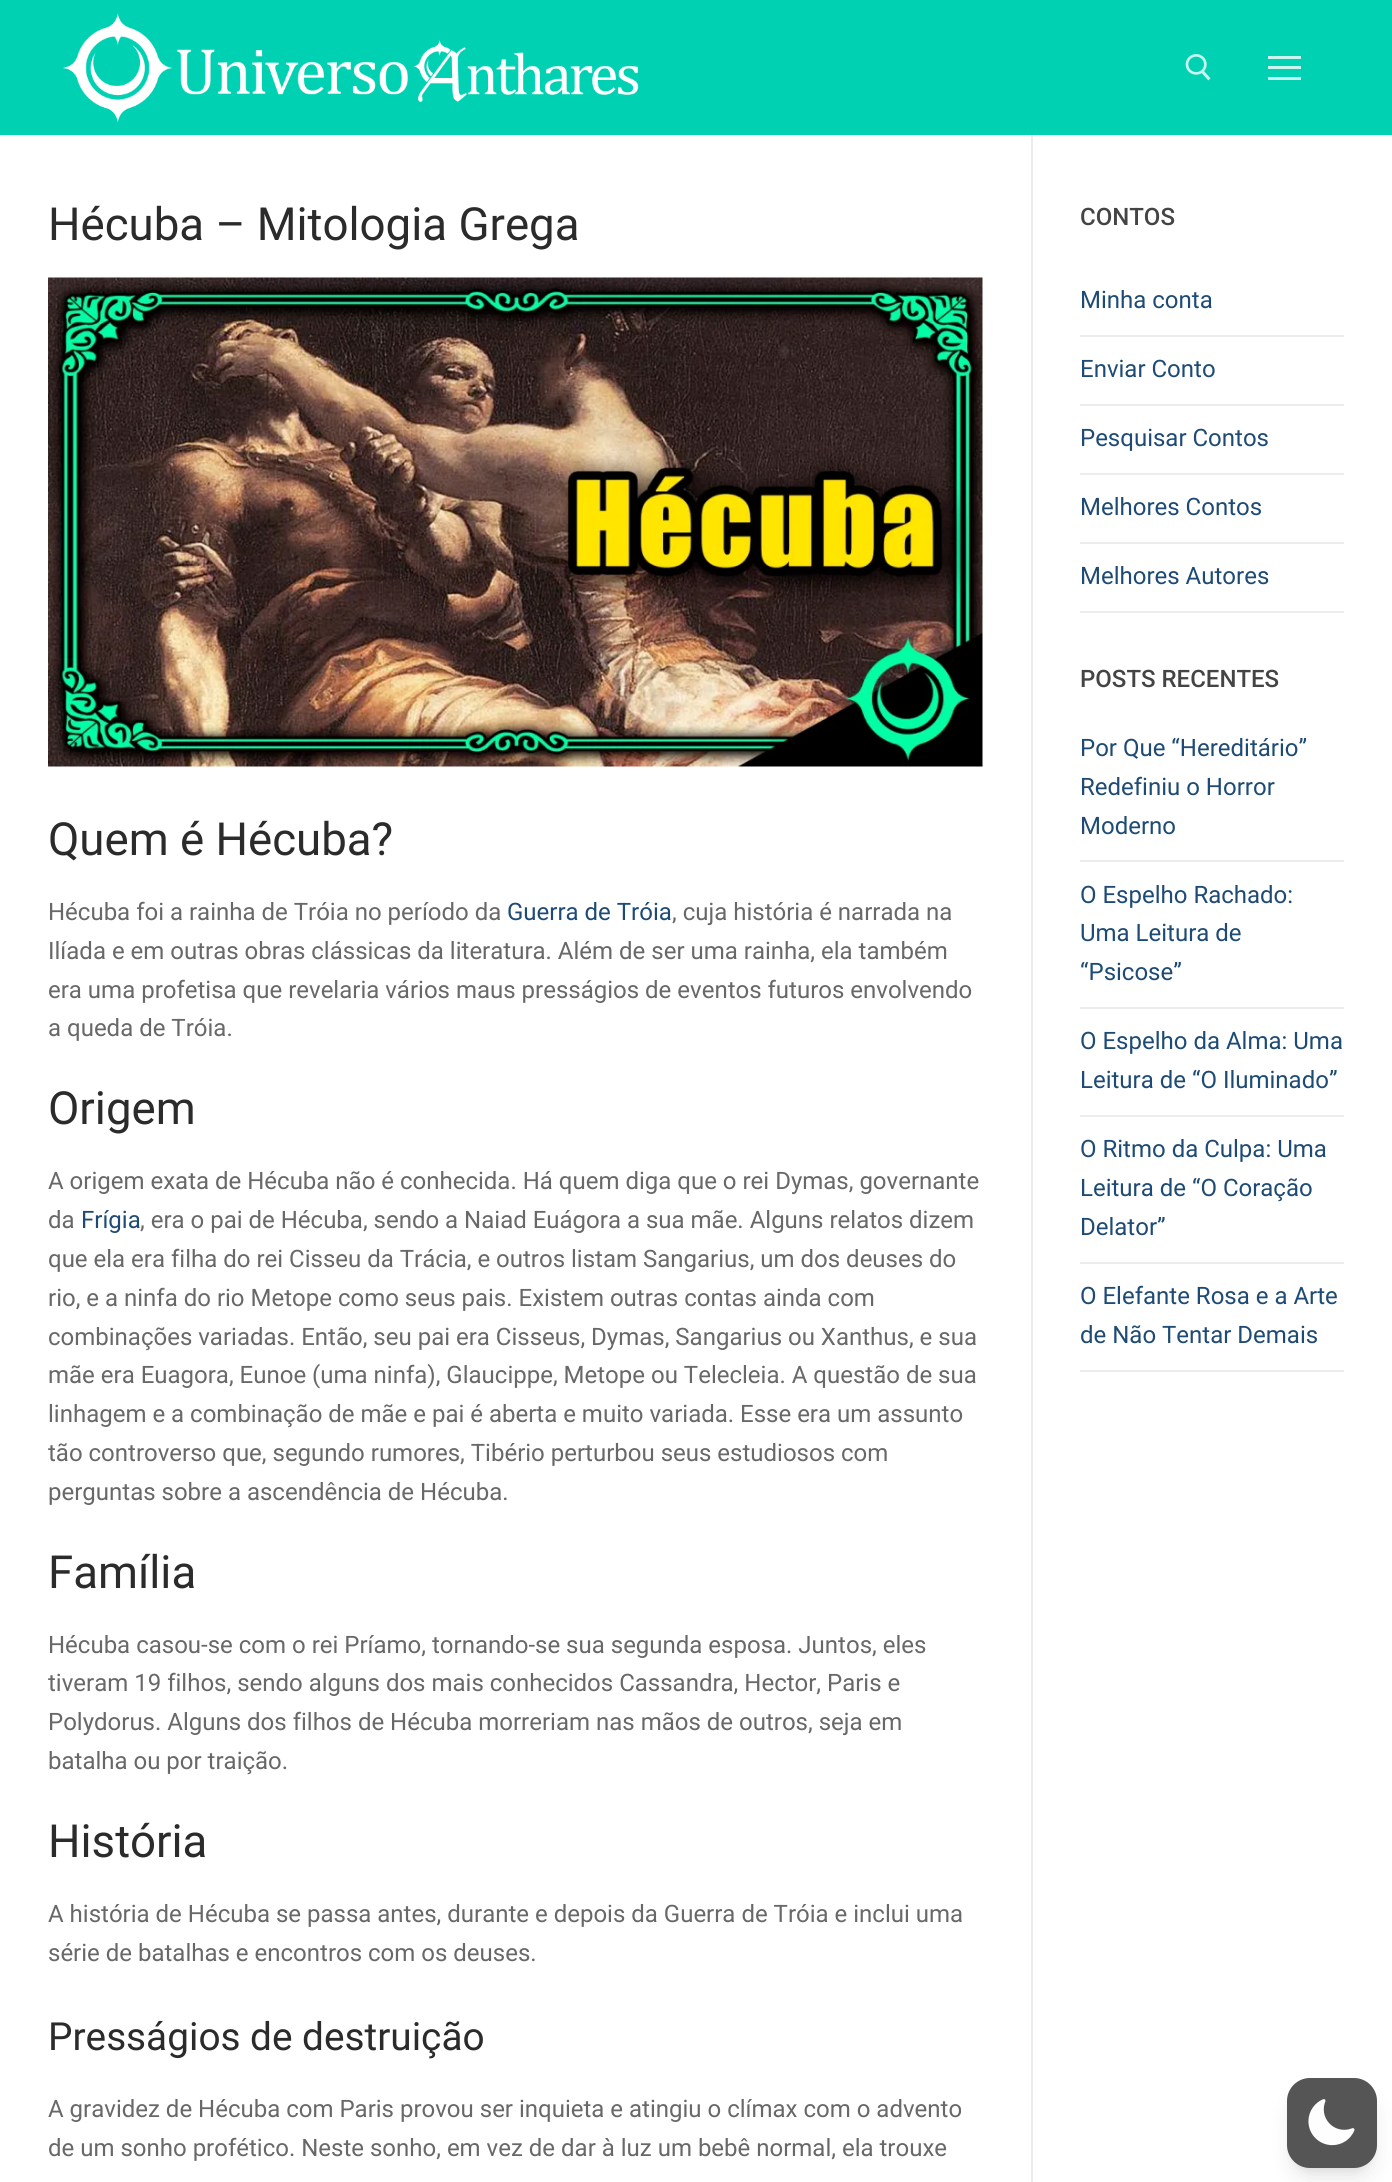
#include <cairo/cairo.h>
#include <math.h>
#include <stddef.h>


static void rounded_rect(cairo_t *cr, double x, double y, double w, double h, double r) {
  cairo_new_sub_path(cr);
  cairo_arc(cr, x + w - r, y + h - r, r, 0, M_PI / 2);
  cairo_arc(cr, x + r, y + h - r, r, M_PI / 2, M_PI);
  cairo_arc(cr, x + r, y + r, r, M_PI, 1.5 * M_PI);
  cairo_arc(cr, x + w - r, y + r, r, 1.5 * M_PI, 2 * M_PI);
  cairo_close_path(cr);
}

static void draw_shadow(cairo_t *cr, double x, double y, double w, double h, double r, double blur, double alpha) {
  cairo_push_group_with_content(cr, CAIRO_CONTENT_ALPHA);
  cairo_set_operator(cr, CAIRO_OPERATOR_SOURCE);
  for (int i = 15; i >= -15 && fmin(w, h) + blur * i / 3 > 0; i -= 2) {
    double e = blur * i / 6;
    cairo_set_source_rgba(cr, 0, 0, 0, alpha * erfc((i - 1) / 8.5) / 2);
    rounded_rect(cr, x - e, y - e, w + 2 * e, h + 2 * e, fmax(0, fmin(r + e + blur * .6, fmin(w, h) / 2 + e)));
    cairo_fill(cr);
  }
  cairo_pattern_t *soft = cairo_pop_group(cr);
  cairo_mask(cr, soft);
  cairo_pattern_destroy(soft);
}

static void draw_image(cairo_t *cr, const char *path, double x, double y, double w, double h) {
  cairo_surface_t *image = cairo_image_surface_create_from_png(path);
  cairo_save(cr);
  cairo_set_source_surface(cr, image, x, y);
  cairo_rectangle(cr, x, y, w, h);
  cairo_fill(cr);
  cairo_restore(cr);
  cairo_surface_destroy(image);
}

static void draw(cairo_t *cr) {
  cairo_set_source_rgb(cr, 1, 1, 1);
  cairo_paint(cr);
  cairo_set_source_rgb(cr, 0, 209 / 255.0, 178 / 255.0);
  cairo_rectangle(cr, 0, 0, 1392, 135);
  cairo_fill(cr);
  draw_image(cr, "images/1.png", 63, 13, 576, 110);
  draw_image(cr, "images/2.png", 1185, 54, 26, 27);
  cairo_set_source_rgb(cr, 201 / 255.0, 245 / 255.0, 239 / 255.0);
  cairo_rectangle(cr, 1268, 66, 33, 3);
  cairo_fill(cr);
  cairo_rectangle(cr, 1268, 56, 33, 3);
  cairo_fill(cr);
  cairo_rectangle(cr, 1268, 77, 33, 3);
  cairo_fill(cr);
  cairo_set_source_rgb(cr, 234 / 255.0, 236 / 255.0, 238 / 255.0);
  cairo_rectangle(cr, 1031, 135, 2, 2047);
  cairo_fill(cr);
  draw_image(cr, "images/3.png", 48, 277, 935, 490);
  cairo_rectangle(cr, 1080, 335, 264, 2);
  cairo_fill(cr);
  cairo_rectangle(cr, 1080, 404, 264, 2);
  cairo_fill(cr);
  cairo_rectangle(cr, 1080, 473, 264, 2);
  cairo_fill(cr);
  cairo_rectangle(cr, 1080, 542, 264, 2);
  cairo_fill(cr);
  cairo_rectangle(cr, 1080, 611, 264, 2);
  cairo_fill(cr);
  cairo_rectangle(cr, 1080, 860, 264, 2);
  cairo_fill(cr);
  cairo_rectangle(cr, 1080, 1007, 264, 2);
  cairo_fill(cr);
  cairo_rectangle(cr, 1080, 1115, 264, 2);
  cairo_fill(cr);
  cairo_rectangle(cr, 1080, 1262, 264, 2);
  cairo_fill(cr);
  cairo_rectangle(cr, 1080, 1370, 264, 2);
  cairo_fill(cr);
  cairo_set_source_rgb(cr, 0, 0, 0);
  draw_shadow(cr, 1293, 2090, 78, 78, 17, 4.5, 0.1);
  draw_shadow(cr, 1292, 2097, 81, 81, 18, 11, 0.1);
  cairo_set_source_rgb(cr, 85 / 255.0, 85 / 255.0, 85 / 255.0);
  rounded_rect(cr, 1287, 2078, 90, 90, 23);
  cairo_fill(cr);
  draw_image(cr, "images/4.png", 1308, 2099, 47, 47);
  cairo_select_font_face(cr, "Roboto", CAIRO_FONT_SLANT_NORMAL, CAIRO_FONT_WEIGHT_NORMAL);
  cairo_set_font_size(cr, 45.6);
  cairo_set_source_rgb(cr, 43 / 255.0, 43 / 255.0, 43 / 255.0);
  cairo_move_to(cr, 48, 240);
  cairo_show_text(cr, "Hécuba – Mitologia Grega");
  cairo_move_to(cr, 48, 855);
  cairo_show_text(cr, "Quem é Hécuba?");
  cairo_set_font_size(cr, 24);
  cairo_set_source_rgb(cr, 104 / 255.0, 104 / 255.0, 104 / 255.0);
  cairo_move_to(cr, 48, 920);
  cairo_show_text(cr, "Hécuba foi a rainha de Tróia no período da");
  cairo_set_source_rgb(cr, 30 / 255.0, 75 / 255.0, 117 / 255.0);
  cairo_move_to(cr, 507, 920);
  cairo_show_text(cr, "Guerra de Tróia");
  cairo_set_source_rgb(cr, 104 / 255.0, 104 / 255.0, 104 / 255.0);
  cairo_move_to(cr, 672, 920);
  cairo_show_text(cr, ", cuja história é narrada na");
  cairo_move_to(cr, 48, 959);
  cairo_show_text(cr, "Ilíada e em outras obras clássicas da literatura. Além de ser uma rainha, ela também");
  cairo_move_to(cr, 48, 998);
  cairo_show_text(cr, "era uma profetisa que revelaria vários maus presságios de eventos futuros envolvendo");
  cairo_move_to(cr, 48, 1036);
  cairo_show_text(cr, "a queda de Tróia.");
  cairo_set_font_size(cr, 45.6);
  cairo_set_source_rgb(cr, 43 / 255.0, 43 / 255.0, 43 / 255.0);
  cairo_move_to(cr, 48, 1124);
  cairo_show_text(cr, "Origem");
  cairo_set_font_size(cr, 24);
  cairo_set_source_rgb(cr, 104 / 255.0, 104 / 255.0, 104 / 255.0);
  cairo_move_to(cr, 48, 1189);
  cairo_show_text(cr, "A origem exata de Hécuba não é conhecida. Há quem diga que o rei Dymas, governante");
  cairo_move_to(cr, 48, 1228);
  cairo_show_text(cr, "da");
  cairo_set_source_rgb(cr, 30 / 255.0, 75 / 255.0, 117 / 255.0);
  cairo_move_to(cr, 81, 1228);
  cairo_show_text(cr, "Frígia");
  cairo_set_source_rgb(cr, 104 / 255.0, 104 / 255.0, 104 / 255.0);
  cairo_move_to(cr, 140, 1228);
  cairo_show_text(cr, ", era o pai de Hécuba, sendo a Naiad Euágora a sua mãe. Alguns relatos dizem");
  cairo_move_to(cr, 48, 1267);
  cairo_show_text(cr, "que ela era filha do rei Cisseu da Trácia, e outros listam Sangarius, um dos deuses do");
  cairo_move_to(cr, 48, 1306);
  cairo_show_text(cr, "rio, e a ninfa do rio Metope como seus pais. Existem outras contas ainda com");
  cairo_move_to(cr, 48, 1345);
  cairo_show_text(cr, "combinações variadas. Então, seu pai era Cisseus, Dymas, Sangarius ou Xanthus, e sua");
  cairo_move_to(cr, 48, 1383);
  cairo_show_text(cr, "mãe era Euagora, Eunoe (uma ninfa), Glaucippe, Metope ou Telecleia. A questão de sua");
  cairo_move_to(cr, 48, 1422);
  cairo_show_text(cr, "linhagem e a combinação de mãe e pai é aberta e muito variada. Esse era um assunto");
  cairo_move_to(cr, 48, 1461);
  cairo_show_text(cr, "tão controverso que, segundo rumores, Tibério perturbou seus estudiosos com");
  cairo_move_to(cr, 48, 1500);
  cairo_show_text(cr, "perguntas sobre a ascendência de Hécuba.");
  cairo_set_font_size(cr, 45.6);
  cairo_set_source_rgb(cr, 43 / 255.0, 43 / 255.0, 43 / 255.0);
  cairo_move_to(cr, 48, 1588);
  cairo_show_text(cr, "Família");
  cairo_set_font_size(cr, 24);
  cairo_set_source_rgb(cr, 104 / 255.0, 104 / 255.0, 104 / 255.0);
  cairo_move_to(cr, 48, 1653);
  cairo_show_text(cr, "Hécuba casou-se com o rei Príamo, tornando-se sua segunda esposa. Juntos, eles");
  cairo_move_to(cr, 48, 1691);
  cairo_show_text(cr, "tiveram 19 filhos, sendo alguns dos mais conhecidos Cassandra, Hector, Paris e");
  cairo_move_to(cr, 48, 1730);
  cairo_show_text(cr, "Polydorus. Alguns dos filhos de Hécuba morreriam nas mãos de outros, seja em");
  cairo_move_to(cr, 48, 1769);
  cairo_show_text(cr, "batalha ou por traição.");
  cairo_set_font_size(cr, 45.6);
  cairo_set_source_rgb(cr, 43 / 255.0, 43 / 255.0, 43 / 255.0);
  cairo_move_to(cr, 48, 1857);
  cairo_show_text(cr, "História");
  cairo_set_font_size(cr, 24);
  cairo_set_source_rgb(cr, 104 / 255.0, 104 / 255.0, 104 / 255.0);
  cairo_move_to(cr, 48, 1922);
  cairo_show_text(cr, "A história de Hécuba se passa antes, durante e depois da Guerra de Tróia e inclui uma");
  cairo_move_to(cr, 48, 1961);
  cairo_show_text(cr, "série de batalhas e encontros com os deuses.");
  cairo_set_font_size(cr, 38.75);
  cairo_set_source_rgb(cr, 43 / 255.0, 43 / 255.0, 43 / 255.0);
  cairo_move_to(cr, 48, 2050);
  cairo_show_text(cr, "Presságios de destruição");
  cairo_set_font_size(cr, 24);
  cairo_set_source_rgb(cr, 104 / 255.0, 104 / 255.0, 104 / 255.0);
  cairo_move_to(cr, 48, 2117);
  cairo_show_text(cr, "A gravidez de Hécuba com Paris provou ser inquieta e atingiu o clímax com o advento");
  cairo_move_to(cr, 48, 2156);
  cairo_show_text(cr, "de um sonho profético. Neste sonho, em vez de dar à luz um bebê normal, ela trouxe");
  cairo_select_font_face(cr, "Roboto Medium", CAIRO_FONT_SLANT_NORMAL, CAIRO_FONT_WEIGHT_NORMAL);
  cairo_set_source_rgb(cr, 68 / 255.0, 68 / 255.0, 68 / 255.0);
  cairo_move_to(cr, 1080, 225);
  cairo_show_text(cr, "CONTOS");
  cairo_select_font_face(cr, "Roboto", CAIRO_FONT_SLANT_NORMAL, CAIRO_FONT_WEIGHT_NORMAL);
  cairo_set_source_rgb(cr, 30 / 255.0, 75 / 255.0, 117 / 255.0);
  cairo_move_to(cr, 1080, 308);
  cairo_show_text(cr, "Minha conta");
  cairo_move_to(cr, 1080, 377);
  cairo_show_text(cr, "Enviar Conto");
  cairo_move_to(cr, 1080, 446);
  cairo_show_text(cr, "Pesquisar Contos");
  cairo_move_to(cr, 1080, 515);
  cairo_show_text(cr, "Melhores Contos");
  cairo_move_to(cr, 1080, 584);
  cairo_show_text(cr, "Melhores Autores");
  cairo_select_font_face(cr, "Roboto Medium", CAIRO_FONT_SLANT_NORMAL, CAIRO_FONT_WEIGHT_NORMAL);
  cairo_set_source_rgb(cr, 68 / 255.0, 68 / 255.0, 68 / 255.0);
  cairo_move_to(cr, 1080, 687);
  cairo_show_text(cr, "POSTS RECENTES");
  cairo_select_font_face(cr, "Roboto", CAIRO_FONT_SLANT_NORMAL, CAIRO_FONT_WEIGHT_NORMAL);
  cairo_set_source_rgb(cr, 30 / 255.0, 75 / 255.0, 117 / 255.0);
  cairo_move_to(cr, 1080, 756);
  cairo_show_text(cr, "Por Que “Hereditário”");
  cairo_move_to(cr, 1080, 795);
  cairo_show_text(cr, "Redefiniu o Horror");
  cairo_move_to(cr, 1080, 834);
  cairo_show_text(cr, "Moderno");
  cairo_move_to(cr, 1080, 903);
  cairo_show_text(cr, "O Espelho Rachado:");
  cairo_move_to(cr, 1080, 941);
  cairo_show_text(cr, "Uma Leitura de");
  cairo_move_to(cr, 1080, 980);
  cairo_show_text(cr, "“Psicose”");
  cairo_move_to(cr, 1080, 1049);
  cairo_show_text(cr, "O Espelho da Alma: Uma");
  cairo_move_to(cr, 1080, 1088);
  cairo_show_text(cr, "Leitura de “O Iluminado”");
  cairo_move_to(cr, 1080, 1157);
  cairo_show_text(cr, "O Ritmo da Culpa: Uma");
  cairo_move_to(cr, 1080, 1196);
  cairo_show_text(cr, "Leitura de “O Coração");
  cairo_move_to(cr, 1080, 1235);
  cairo_show_text(cr, "Delator”");
  cairo_move_to(cr, 1080, 1304);
  cairo_show_text(cr, "O Elefante Rosa e a Arte");
  cairo_move_to(cr, 1080, 1343);
  cairo_show_text(cr, "de Não Tentar Demais");
}

int main(void) {
  cairo_surface_t *surface = cairo_image_surface_create(CAIRO_FORMAT_RGB24, 1392, 2182);
  cairo_t *cr = cairo_create(surface);
  cairo_font_options_t *options = cairo_font_options_create();
  cairo_font_options_set_hint_metrics(options, CAIRO_HINT_METRICS_OFF);
  cairo_font_options_set_hint_style(options, CAIRO_HINT_STYLE_NONE);
  cairo_set_font_options(cr, options);
  cairo_set_miter_limit(cr, 4);
  draw(cr);
  cairo_surface_write_to_png(surface, "out.png");
  cairo_font_options_destroy(options);
  cairo_destroy(cr);
  cairo_surface_destroy(surface);
  return 0;
}
